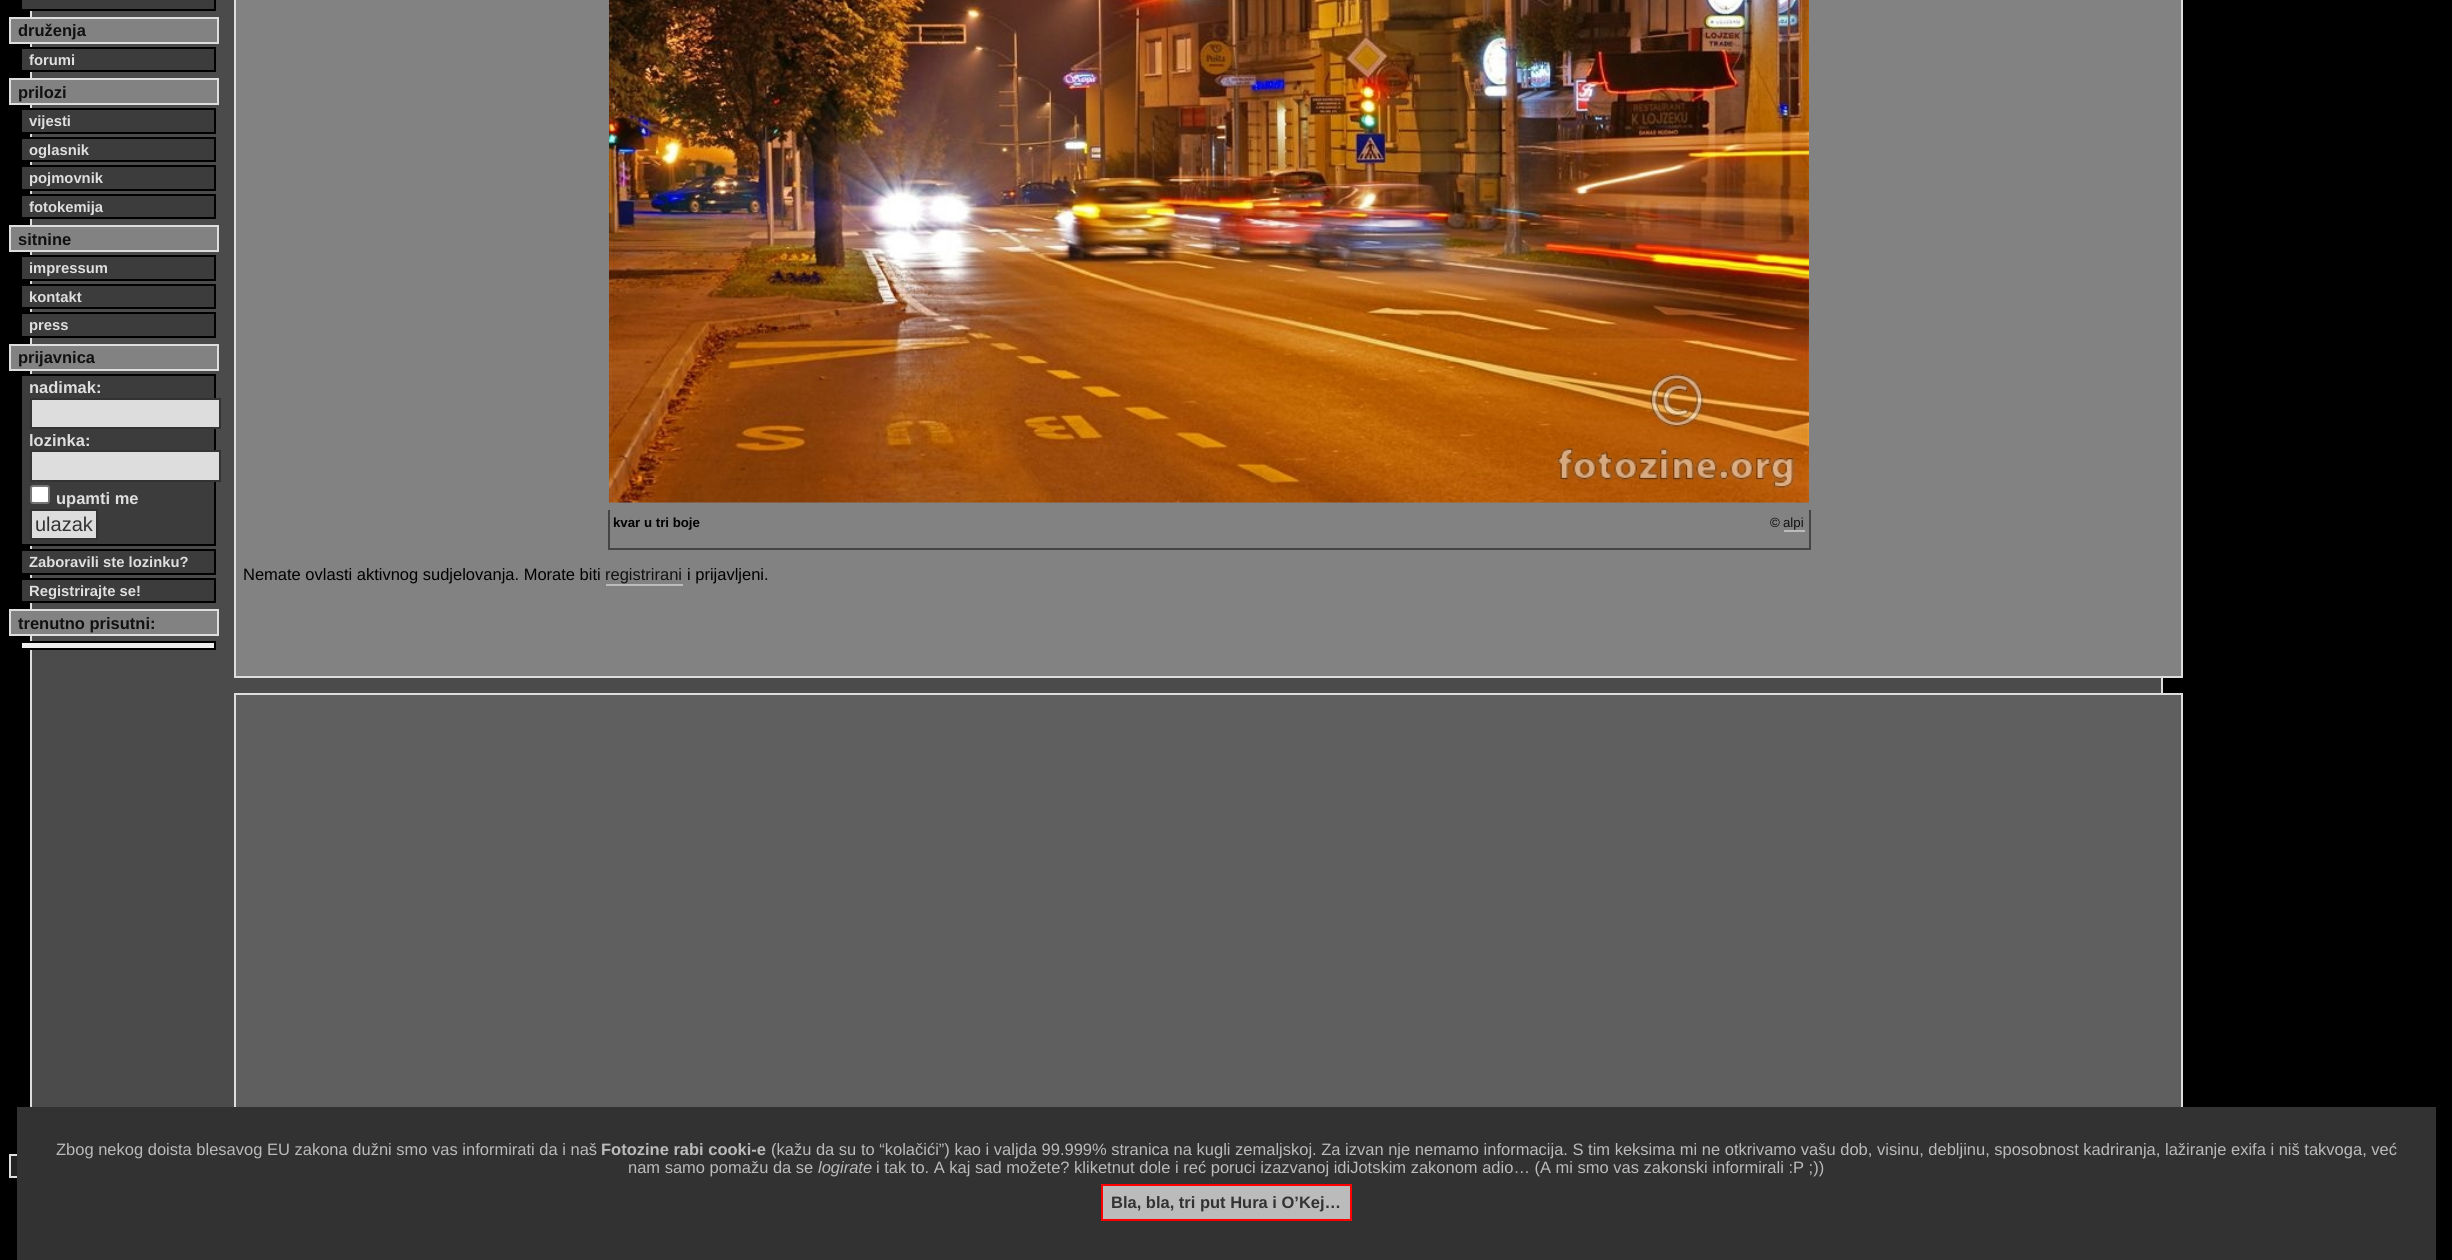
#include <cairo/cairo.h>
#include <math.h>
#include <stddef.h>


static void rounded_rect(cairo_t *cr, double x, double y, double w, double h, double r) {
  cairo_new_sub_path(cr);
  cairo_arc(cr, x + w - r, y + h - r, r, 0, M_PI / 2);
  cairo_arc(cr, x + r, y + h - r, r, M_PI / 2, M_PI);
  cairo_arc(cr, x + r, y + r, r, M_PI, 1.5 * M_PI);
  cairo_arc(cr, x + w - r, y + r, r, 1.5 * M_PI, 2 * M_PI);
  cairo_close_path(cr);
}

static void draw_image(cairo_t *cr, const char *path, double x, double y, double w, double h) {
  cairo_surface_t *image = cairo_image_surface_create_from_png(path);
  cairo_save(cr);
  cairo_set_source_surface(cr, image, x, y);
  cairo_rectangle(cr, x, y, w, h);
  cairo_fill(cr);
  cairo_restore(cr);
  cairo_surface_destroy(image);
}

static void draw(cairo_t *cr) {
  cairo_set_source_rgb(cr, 0, 0, 0);
  cairo_paint(cr);
  cairo_set_source_rgb(cr, 75 / 255.0, 75 / 255.0, 75 / 255.0);
  cairo_rectangle(cr, 32, 0, 2129, 1107);
  cairo_fill(cr);
  cairo_rectangle(cr, 31, -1, 2131, 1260);
  cairo_set_source_rgb(cr, 222 / 255.0, 222 / 255.0, 222 / 255.0);
  cairo_stroke(cr);
  cairo_set_source_rgb(cr, 60 / 255.0, 60 / 255.0, 60 / 255.0);
  cairo_rectangle(cr, 21, -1, 194, 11);
  cairo_fill_preserve(cr);
  cairo_set_source_rgb(cr, 0, 0, 0);
  cairo_stroke(cr);
  cairo_set_source_rgb(cr, 130 / 255.0, 130 / 255.0, 130 / 255.0);
  cairo_rectangle(cr, 10, 18, 208, 25);
  cairo_fill_preserve(cr);
  cairo_set_source_rgb(cr, 222 / 255.0, 222 / 255.0, 222 / 255.0);
  cairo_stroke(cr);
  cairo_set_source_rgb(cr, 60 / 255.0, 60 / 255.0, 60 / 255.0);
  cairo_rectangle(cr, 21, 48, 194, 23);
  cairo_fill_preserve(cr);
  cairo_set_source_rgb(cr, 0, 0, 0);
  cairo_stroke(cr);
  cairo_set_source_rgb(cr, 130 / 255.0, 130 / 255.0, 130 / 255.0);
  cairo_rectangle(cr, 10, 79, 208, 25);
  cairo_fill_preserve(cr);
  cairo_set_source_rgb(cr, 222 / 255.0, 222 / 255.0, 222 / 255.0);
  cairo_stroke(cr);
  cairo_set_source_rgb(cr, 60 / 255.0, 60 / 255.0, 60 / 255.0);
  cairo_rectangle(cr, 21, 109, 194, 24);
  cairo_fill_preserve(cr);
  cairo_set_source_rgb(cr, 0, 0, 0);
  cairo_stroke(cr);
  cairo_set_source_rgb(cr, 60 / 255.0, 60 / 255.0, 60 / 255.0);
  cairo_rectangle(cr, 21, 138, 194, 23);
  cairo_fill_preserve(cr);
  cairo_set_source_rgb(cr, 0, 0, 0);
  cairo_stroke(cr);
  cairo_set_source_rgb(cr, 60 / 255.0, 60 / 255.0, 60 / 255.0);
  cairo_rectangle(cr, 21, 166, 194, 24);
  cairo_fill_preserve(cr);
  cairo_set_source_rgb(cr, 0, 0, 0);
  cairo_stroke(cr);
  cairo_set_source_rgb(cr, 60 / 255.0, 60 / 255.0, 60 / 255.0);
  cairo_rectangle(cr, 21, 195, 194, 23);
  cairo_fill_preserve(cr);
  cairo_set_source_rgb(cr, 0, 0, 0);
  cairo_stroke(cr);
  cairo_set_source_rgb(cr, 130 / 255.0, 130 / 255.0, 130 / 255.0);
  cairo_rectangle(cr, 10, 226, 208, 25);
  cairo_fill_preserve(cr);
  cairo_set_source_rgb(cr, 222 / 255.0, 222 / 255.0, 222 / 255.0);
  cairo_stroke(cr);
  cairo_set_source_rgb(cr, 60 / 255.0, 60 / 255.0, 60 / 255.0);
  cairo_rectangle(cr, 21, 256, 194, 24);
  cairo_fill_preserve(cr);
  cairo_set_source_rgb(cr, 0, 0, 0);
  cairo_stroke(cr);
  cairo_set_source_rgb(cr, 60 / 255.0, 60 / 255.0, 60 / 255.0);
  cairo_rectangle(cr, 21, 285, 194, 23);
  cairo_fill_preserve(cr);
  cairo_set_source_rgb(cr, 0, 0, 0);
  cairo_stroke(cr);
  cairo_set_source_rgb(cr, 60 / 255.0, 60 / 255.0, 60 / 255.0);
  cairo_rectangle(cr, 21, 313, 194, 24);
  cairo_fill_preserve(cr);
  cairo_set_source_rgb(cr, 0, 0, 0);
  cairo_stroke(cr);
  cairo_set_source_rgb(cr, 130 / 255.0, 130 / 255.0, 130 / 255.0);
  cairo_rectangle(cr, 10, 345, 208, 25);
  cairo_fill_preserve(cr);
  cairo_set_source_rgb(cr, 222 / 255.0, 222 / 255.0, 222 / 255.0);
  cairo_stroke(cr);
  cairo_set_source_rgb(cr, 60 / 255.0, 60 / 255.0, 60 / 255.0);
  cairo_rectangle(cr, 21, 375, 194, 170);
  cairo_fill_preserve(cr);
  cairo_set_source_rgb(cr, 0, 0, 0);
  cairo_stroke(cr);
  cairo_set_source_rgb(cr, 221 / 255.0, 221 / 255.0, 221 / 255.0);
  cairo_rectangle(cr, 31, 399, 189, 29);
  cairo_fill_preserve(cr);
  cairo_set_source_rgb(cr, 51 / 255.0, 51 / 255.0, 51 / 255.0);
  cairo_stroke(cr);
  cairo_set_source_rgb(cr, 221 / 255.0, 221 / 255.0, 221 / 255.0);
  cairo_rectangle(cr, 31, 451, 189, 30);
  cairo_fill_preserve(cr);
  cairo_set_source_rgb(cr, 51 / 255.0, 51 / 255.0, 51 / 255.0);
  cairo_stroke(cr);
  cairo_set_source_rgb(cr, 1, 1, 1);
  rounded_rect(cr, 31, 486, 18, 17, 2);
  cairo_fill_preserve(cr);
  cairo_set_source_rgb(cr, 118 / 255.0, 118 / 255.0, 118 / 255.0);
  cairo_stroke(cr);
  cairo_set_source_rgb(cr, 221 / 255.0, 221 / 255.0, 221 / 255.0);
  cairo_rectangle(cr, 31, 510, 66, 29);
  cairo_fill_preserve(cr);
  cairo_set_source_rgb(cr, 51 / 255.0, 51 / 255.0, 51 / 255.0);
  cairo_stroke(cr);
  cairo_set_source_rgb(cr, 60 / 255.0, 60 / 255.0, 60 / 255.0);
  cairo_rectangle(cr, 21, 550, 194, 24);
  cairo_fill_preserve(cr);
  cairo_set_source_rgb(cr, 0, 0, 0);
  cairo_stroke(cr);
  cairo_set_source_rgb(cr, 60 / 255.0, 60 / 255.0, 60 / 255.0);
  cairo_rectangle(cr, 21, 579, 194, 23);
  cairo_fill_preserve(cr);
  cairo_set_source_rgb(cr, 0, 0, 0);
  cairo_stroke(cr);
  cairo_set_source_rgb(cr, 130 / 255.0, 130 / 255.0, 130 / 255.0);
  cairo_rectangle(cr, 10, 610, 208, 25);
  cairo_fill_preserve(cr);
  cairo_set_source_rgb(cr, 222 / 255.0, 222 / 255.0, 222 / 255.0);
  cairo_stroke(cr);
  cairo_set_source_rgb(cr, 238 / 255.0, 238 / 255.0, 238 / 255.0);
  cairo_rectangle(cr, 21, 642, 194, 7);
  cairo_fill_preserve(cr);
  cairo_set_source_rgb(cr, 0, 0, 0);
  cairo_stroke(cr);
  cairo_set_source_rgb(cr, 130 / 255.0, 130 / 255.0, 130 / 255.0);
  cairo_rectangle(cr, 235, -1, 1947, 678);
  cairo_fill_preserve(cr);
  cairo_set_source_rgb(cr, 222 / 255.0, 222 / 255.0, 222 / 255.0);
  cairo_stroke(cr);
  draw_image(cr, "images/1.png", 609, 0, 1200, 503);
  cairo_set_source_rgb(cr, 68 / 255.0, 68 / 255.0, 68 / 255.0);
  cairo_rectangle(cr, 1809, 510, 2, 39);
  cairo_fill(cr);
  cairo_rectangle(cr, 608, 548, 1203, 2);
  cairo_fill(cr);
  cairo_rectangle(cr, 608, 510, 2, 39);
  cairo_fill(cr);
  cairo_set_source_rgb(cr, 187 / 255.0, 187 / 255.0, 187 / 255.0);
  cairo_rectangle(cr, 1784, 530, 21, 2);
  cairo_fill(cr);
  cairo_rectangle(cr, 606, 584, 77, 2);
  cairo_fill(cr);
  cairo_set_source_rgb(cr, 95 / 255.0, 95 / 255.0, 95 / 255.0);
  cairo_rectangle(cr, 236, 695, 1945, 412);
  cairo_fill(cr);
  cairo_rectangle(cr, 235, 694, 1947, 436);
  cairo_set_source_rgb(cr, 222 / 255.0, 222 / 255.0, 222 / 255.0);
  cairo_stroke(cr);
  cairo_set_source_rgb(cr, 36 / 255.0, 36 / 255.0, 36 / 255.0);
  cairo_rectangle(cr, 11, 1156, 6, 20);
  cairo_fill(cr);
  cairo_rectangle(cr, 10, 1155, 2173, 22);
  cairo_set_source_rgb(cr, 222 / 255.0, 222 / 255.0, 222 / 255.0);
  cairo_stroke(cr);
  cairo_set_source_rgb(cr, 50 / 255.0, 50 / 255.0, 50 / 255.0);
  cairo_rectangle(cr, 17, 1107, 2419, 153);
  cairo_fill(cr);
  cairo_set_source_rgb(cr, 187 / 255.0, 187 / 255.0, 187 / 255.0);
  cairo_rectangle(cr, 1102, 1185, 249, 35);
  cairo_fill_preserve(cr);
  cairo_set_source_rgb(cr, 1, 0, 0);
  cairo_stroke(cr);
  cairo_select_font_face(cr, "Liberation Sans", CAIRO_FONT_SLANT_NORMAL, CAIRO_FONT_WEIGHT_BOLD);
  cairo_set_font_size(cr, 16.5);
  cairo_set_source_rgb(cr, 17 / 255.0, 17 / 255.0, 17 / 255.0);
  cairo_move_to(cr, 18, 36);
  cairo_show_text(cr, "druženja");
  cairo_set_font_size(cr, 14.8);
  cairo_set_source_rgb(cr, 223 / 255.0, 223 / 255.0, 223 / 255.0);
  cairo_move_to(cr, 29, 65);
  cairo_show_text(cr, "forumi");
  cairo_set_font_size(cr, 16.5);
  cairo_set_source_rgb(cr, 17 / 255.0, 17 / 255.0, 17 / 255.0);
  cairo_move_to(cr, 18, 98);
  cairo_show_text(cr, "prilozi");
  cairo_set_font_size(cr, 14.8);
  cairo_set_source_rgb(cr, 223 / 255.0, 223 / 255.0, 223 / 255.0);
  cairo_move_to(cr, 29, 126);
  cairo_show_text(cr, "vijesti");
  cairo_move_to(cr, 29, 155);
  cairo_show_text(cr, "oglasnik");
  cairo_move_to(cr, 29, 183);
  cairo_show_text(cr, "pojmovnik");
  cairo_move_to(cr, 29, 212);
  cairo_show_text(cr, "fotokemija");
  cairo_set_font_size(cr, 16.5);
  cairo_set_source_rgb(cr, 17 / 255.0, 17 / 255.0, 17 / 255.0);
  cairo_move_to(cr, 18, 245);
  cairo_show_text(cr, "sitnine");
  cairo_set_font_size(cr, 14.8);
  cairo_set_source_rgb(cr, 223 / 255.0, 223 / 255.0, 223 / 255.0);
  cairo_move_to(cr, 29, 273);
  cairo_show_text(cr, "impressum");
  cairo_move_to(cr, 29, 302);
  cairo_show_text(cr, "kontakt");
  cairo_move_to(cr, 29, 330);
  cairo_show_text(cr, "press");
  cairo_set_font_size(cr, 16.5);
  cairo_set_source_rgb(cr, 17 / 255.0, 17 / 255.0, 17 / 255.0);
  cairo_move_to(cr, 18, 363);
  cairo_show_text(cr, "prijavnica");
  cairo_set_source_rgb(cr, 223 / 255.0, 223 / 255.0, 223 / 255.0);
  cairo_move_to(cr, 29, 393);
  cairo_show_text(cr, "nadimak:");
  cairo_move_to(cr, 29, 446);
  cairo_show_text(cr, "lozinka:");
  cairo_move_to(cr, 56, 504);
  cairo_show_text(cr, "upamti me");
  cairo_select_font_face(cr, "Liberation Sans", CAIRO_FONT_SLANT_NORMAL, CAIRO_FONT_WEIGHT_NORMAL);
  cairo_set_font_size(cr, 20);
  cairo_set_source_rgb(cr, 51 / 255.0, 51 / 255.0, 51 / 255.0);
  cairo_move_to(cr, 35, 531);
  cairo_show_text(cr, "ulazak");
  cairo_select_font_face(cr, "Liberation Sans", CAIRO_FONT_SLANT_NORMAL, CAIRO_FONT_WEIGHT_BOLD);
  cairo_set_font_size(cr, 14.8);
  cairo_set_source_rgb(cr, 223 / 255.0, 223 / 255.0, 223 / 255.0);
  cairo_move_to(cr, 29, 567);
  cairo_show_text(cr, "Zaboravili ste lozinku?");
  cairo_move_to(cr, 29, 596);
  cairo_show_text(cr, "Registrirajte se!");
  cairo_set_font_size(cr, 16.5);
  cairo_set_source_rgb(cr, 17 / 255.0, 17 / 255.0, 17 / 255.0);
  cairo_move_to(cr, 18, 629);
  cairo_show_text(cr, "trenutno prisutni:");
  cairo_set_font_size(cr, 13.25);
  cairo_set_source_rgb(cr, 0, 0, 0);
  cairo_move_to(cr, 613, 527);
  cairo_show_text(cr, "kvar u tri boje");
  cairo_select_font_face(cr, "Liberation Sans", CAIRO_FONT_SLANT_NORMAL, CAIRO_FONT_WEIGHT_NORMAL);
  cairo_move_to(cr, 1770, 527);
  cairo_show_text(cr, "©");
  cairo_set_source_rgb(cr, 17 / 255.0, 17 / 255.0, 17 / 255.0);
  cairo_move_to(cr, 1783, 527);
  cairo_show_text(cr, "alpi");
  cairo_set_font_size(cr, 16.5);
  cairo_set_source_rgb(cr, 0, 0, 0);
  cairo_move_to(cr, 243, 580);
  cairo_show_text(cr, "Nemate ovlasti aktivnog sudjelovanja. Morate biti");
  cairo_set_source_rgb(cr, 17 / 255.0, 17 / 255.0, 17 / 255.0);
  cairo_move_to(cr, 605, 580);
  cairo_show_text(cr, "registrirani");
  cairo_set_source_rgb(cr, 0, 0, 0);
  cairo_move_to(cr, 687, 580);
  cairo_show_text(cr, "i prijavljeni.");
  cairo_set_source_rgb(cr, 187 / 255.0, 187 / 255.0, 187 / 255.0);
  cairo_move_to(cr, 56, 1155);
  cairo_show_text(cr, "Zbog nekog doista blesavog EU zakona dužni smo vas informirati da i naš");
  cairo_select_font_face(cr, "Liberation Sans", CAIRO_FONT_SLANT_NORMAL, CAIRO_FONT_WEIGHT_BOLD);
  cairo_move_to(cr, 601, 1155);
  cairo_show_text(cr, "Fotozine rabi cooki-e");
  cairo_select_font_face(cr, "Liberation Sans", CAIRO_FONT_SLANT_NORMAL, CAIRO_FONT_WEIGHT_NORMAL);
  cairo_move_to(cr, 771, 1155);
  cairo_show_text(cr, "(kažu da su to “kolačići”) kao i valjda 99.999% stranica na kugli zemaljskoj. Za izvan nje nemamo informacija. S tim keksima mi ne otkrivamo vašu dob, visinu, debljinu, sposobnost kadriranja, lažiranje exifa i niš takvoga, već");
  cairo_move_to(cr, 628, 1173);
  cairo_show_text(cr, "nam samo pomažu da se");
  cairo_select_font_face(cr, "Liberation Sans", CAIRO_FONT_SLANT_ITALIC, CAIRO_FONT_WEIGHT_NORMAL);
  cairo_move_to(cr, 818, 1173);
  cairo_show_text(cr, "logirate");
  cairo_select_font_face(cr, "Liberation Sans", CAIRO_FONT_SLANT_NORMAL, CAIRO_FONT_WEIGHT_NORMAL);
  cairo_move_to(cr, 876, 1173);
  cairo_show_text(cr, "i tak to. A kaj sad možete? kliketnut dole i reć poruci izazvanoj idiJotskim zakonom adio… (A mi smo vas zakonski informirali :P ;))");
  cairo_select_font_face(cr, "Liberation Sans", CAIRO_FONT_SLANT_NORMAL, CAIRO_FONT_WEIGHT_BOLD);
  cairo_set_source_rgb(cr, 51 / 255.0, 51 / 255.0, 51 / 255.0);
  cairo_move_to(cr, 1111, 1208);
  cairo_show_text(cr, "Bla, bla, tri put Hura i O’Kej…");
}

int main(void) {
  cairo_surface_t *surface = cairo_image_surface_create(CAIRO_FORMAT_RGB24, 2452, 1260);
  cairo_t *cr = cairo_create(surface);
  cairo_font_options_t *options = cairo_font_options_create();
  cairo_font_options_set_hint_metrics(options, CAIRO_HINT_METRICS_OFF);
  cairo_font_options_set_hint_style(options, CAIRO_HINT_STYLE_NONE);
  cairo_set_font_options(cr, options);
  cairo_set_miter_limit(cr, 4);
  draw(cr);
  cairo_surface_write_to_png(surface, "out.png");
  cairo_font_options_destroy(options);
  cairo_destroy(cr);
  cairo_surface_destroy(surface);
  return 0;
}
